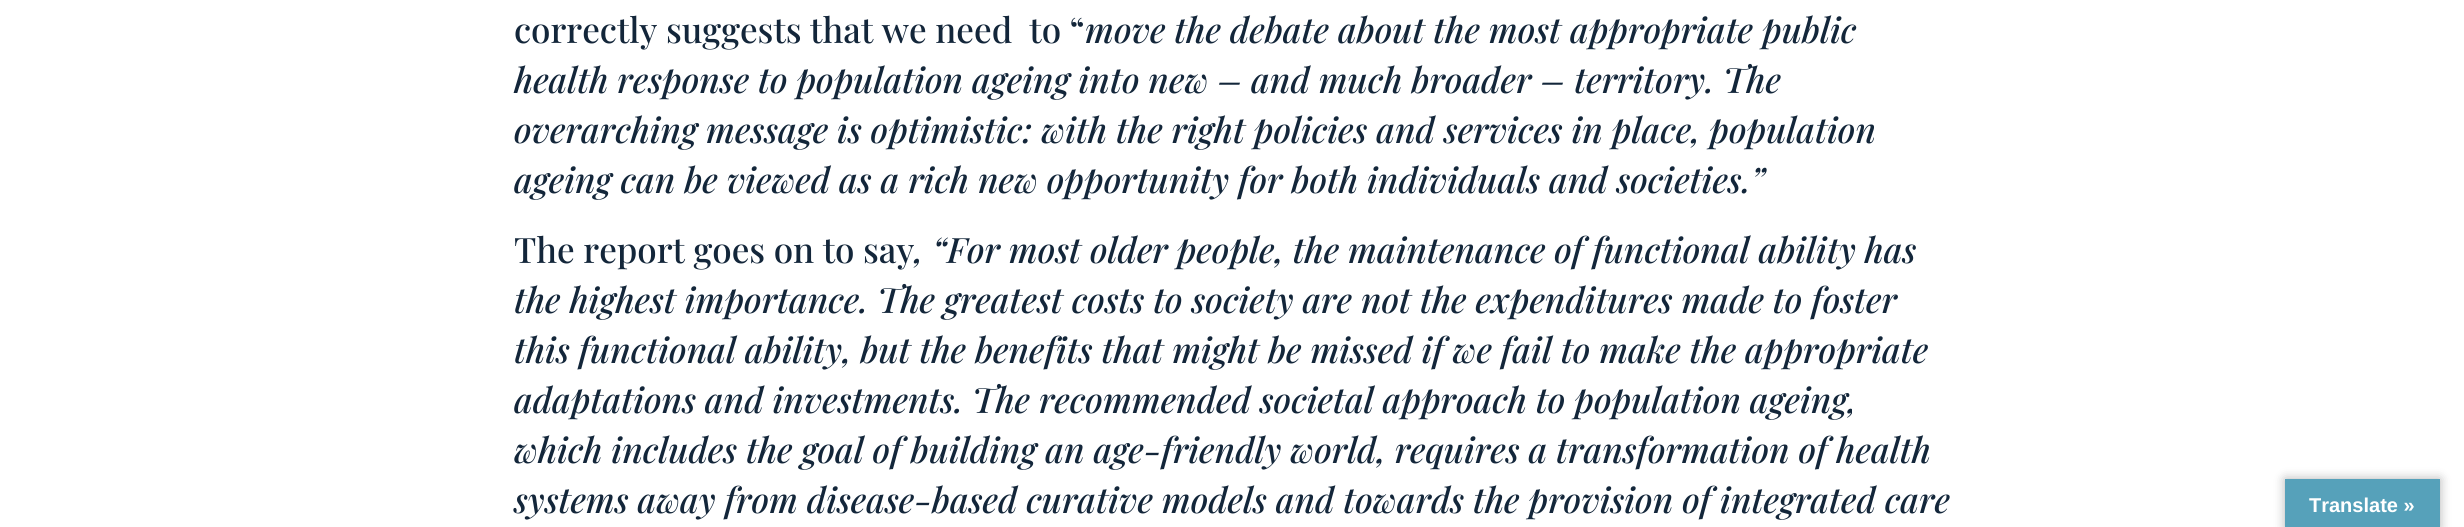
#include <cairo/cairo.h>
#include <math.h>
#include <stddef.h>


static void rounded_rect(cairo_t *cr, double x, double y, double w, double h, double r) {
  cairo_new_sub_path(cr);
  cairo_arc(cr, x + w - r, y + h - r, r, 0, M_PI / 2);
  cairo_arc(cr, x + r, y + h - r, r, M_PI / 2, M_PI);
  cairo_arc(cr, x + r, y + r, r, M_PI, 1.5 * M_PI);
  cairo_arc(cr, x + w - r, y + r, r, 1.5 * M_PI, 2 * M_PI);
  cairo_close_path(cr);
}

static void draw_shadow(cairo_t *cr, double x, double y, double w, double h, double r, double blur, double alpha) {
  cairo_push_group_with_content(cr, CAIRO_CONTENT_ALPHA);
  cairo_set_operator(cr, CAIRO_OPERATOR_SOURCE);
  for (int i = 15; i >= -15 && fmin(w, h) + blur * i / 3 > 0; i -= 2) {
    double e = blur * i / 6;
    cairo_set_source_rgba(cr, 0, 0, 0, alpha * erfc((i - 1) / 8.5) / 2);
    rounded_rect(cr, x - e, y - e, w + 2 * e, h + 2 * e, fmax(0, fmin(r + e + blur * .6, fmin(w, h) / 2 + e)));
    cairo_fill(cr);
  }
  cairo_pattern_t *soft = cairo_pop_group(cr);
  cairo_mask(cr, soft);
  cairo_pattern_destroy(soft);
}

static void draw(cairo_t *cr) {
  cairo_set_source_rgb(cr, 1, 1, 1);
  cairo_paint(cr);
  cairo_set_source_rgb(cr, 0, 0, 0);
  draw_shadow(cr, 2285, 479, 155, 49, 0, 5.5, 0.3);
  cairo_set_source_rgb(cr, 86 / 255.0, 161 / 255.0, 186 / 255.0);
  cairo_rectangle(cr, 2285, 479, 155, 48);
  cairo_fill(cr);
  cairo_select_font_face(cr, "Playfair Display Medium", CAIRO_FONT_SLANT_NORMAL, CAIRO_FONT_WEIGHT_NORMAL);
  cairo_set_font_size(cr, 35);
  cairo_set_source_rgb(cr, 19 / 255.0, 38 / 255.0, 58 / 255.0);
  cairo_move_to(cr, 514, 43);
  cairo_show_text(cr, "correctly suggests that we need  to “");
  cairo_select_font_face(cr, "Playfair Display Medium", CAIRO_FONT_SLANT_ITALIC, CAIRO_FONT_WEIGHT_NORMAL);
  cairo_move_to(cr, 1085, 43);
  cairo_show_text(cr, "move the debate about the most appropriate public");
  cairo_move_to(cr, 514, 93);
  cairo_show_text(cr, "health response to population ageing into new – and much broader – territory. The");
  cairo_move_to(cr, 514, 143);
  cairo_show_text(cr, "overarching message is optimistic: with the right policies and services in place, population");
  cairo_move_to(cr, 514, 193);
  cairo_show_text(cr, "ageing can be viewed as a rich new opportunity for both individuals and societies.”");
  cairo_select_font_face(cr, "Playfair Display Medium", CAIRO_FONT_SLANT_NORMAL, CAIRO_FONT_WEIGHT_NORMAL);
  cairo_move_to(cr, 514, 263);
  cairo_show_text(cr, "The report goes on to say");
  cairo_select_font_face(cr, "Playfair Display Medium", CAIRO_FONT_SLANT_ITALIC, CAIRO_FONT_WEIGHT_NORMAL);
  cairo_move_to(cr, 914, 263);
  cairo_show_text(cr, ", “For most older people, the maintenance of functional ability has");
  cairo_move_to(cr, 514, 313);
  cairo_show_text(cr, "the highest importance. The greatest costs to society are not the expenditures made to foster");
  cairo_move_to(cr, 514, 363);
  cairo_show_text(cr, "this functional ability, but the benefits that might be missed if we fail to make the appropriate");
  cairo_move_to(cr, 514, 413);
  cairo_show_text(cr, "adaptations and investments. The recommended societal approach to population ageing,");
  cairo_move_to(cr, 514, 463);
  cairo_show_text(cr, "which includes the goal of building an age-friendly world, requires a transformation of health");
  cairo_move_to(cr, 514, 513);
  cairo_show_text(cr, "systems away from disease-based curative models and towards the provision of integrated care");
  cairo_select_font_face(cr, "Liberation Sans", CAIRO_FONT_SLANT_NORMAL, CAIRO_FONT_WEIGHT_BOLD);
  cairo_set_font_size(cr, 20);
  cairo_set_source_rgb(cr, 1, 1, 1);
  cairo_move_to(cr, 2309, 512);
  cairo_show_text(cr, "Translate »");
}

int main(void) {
  cairo_surface_t *surface = cairo_image_surface_create(CAIRO_FORMAT_RGB24, 2464, 527);
  cairo_t *cr = cairo_create(surface);
  cairo_font_options_t *options = cairo_font_options_create();
  cairo_font_options_set_hint_metrics(options, CAIRO_HINT_METRICS_OFF);
  cairo_font_options_set_hint_style(options, CAIRO_HINT_STYLE_NONE);
  cairo_set_font_options(cr, options);
  cairo_set_miter_limit(cr, 4);
  draw(cr);
  cairo_surface_write_to_png(surface, "out.png");
  cairo_font_options_destroy(options);
  cairo_destroy(cr);
  cairo_surface_destroy(surface);
  return 0;
}
